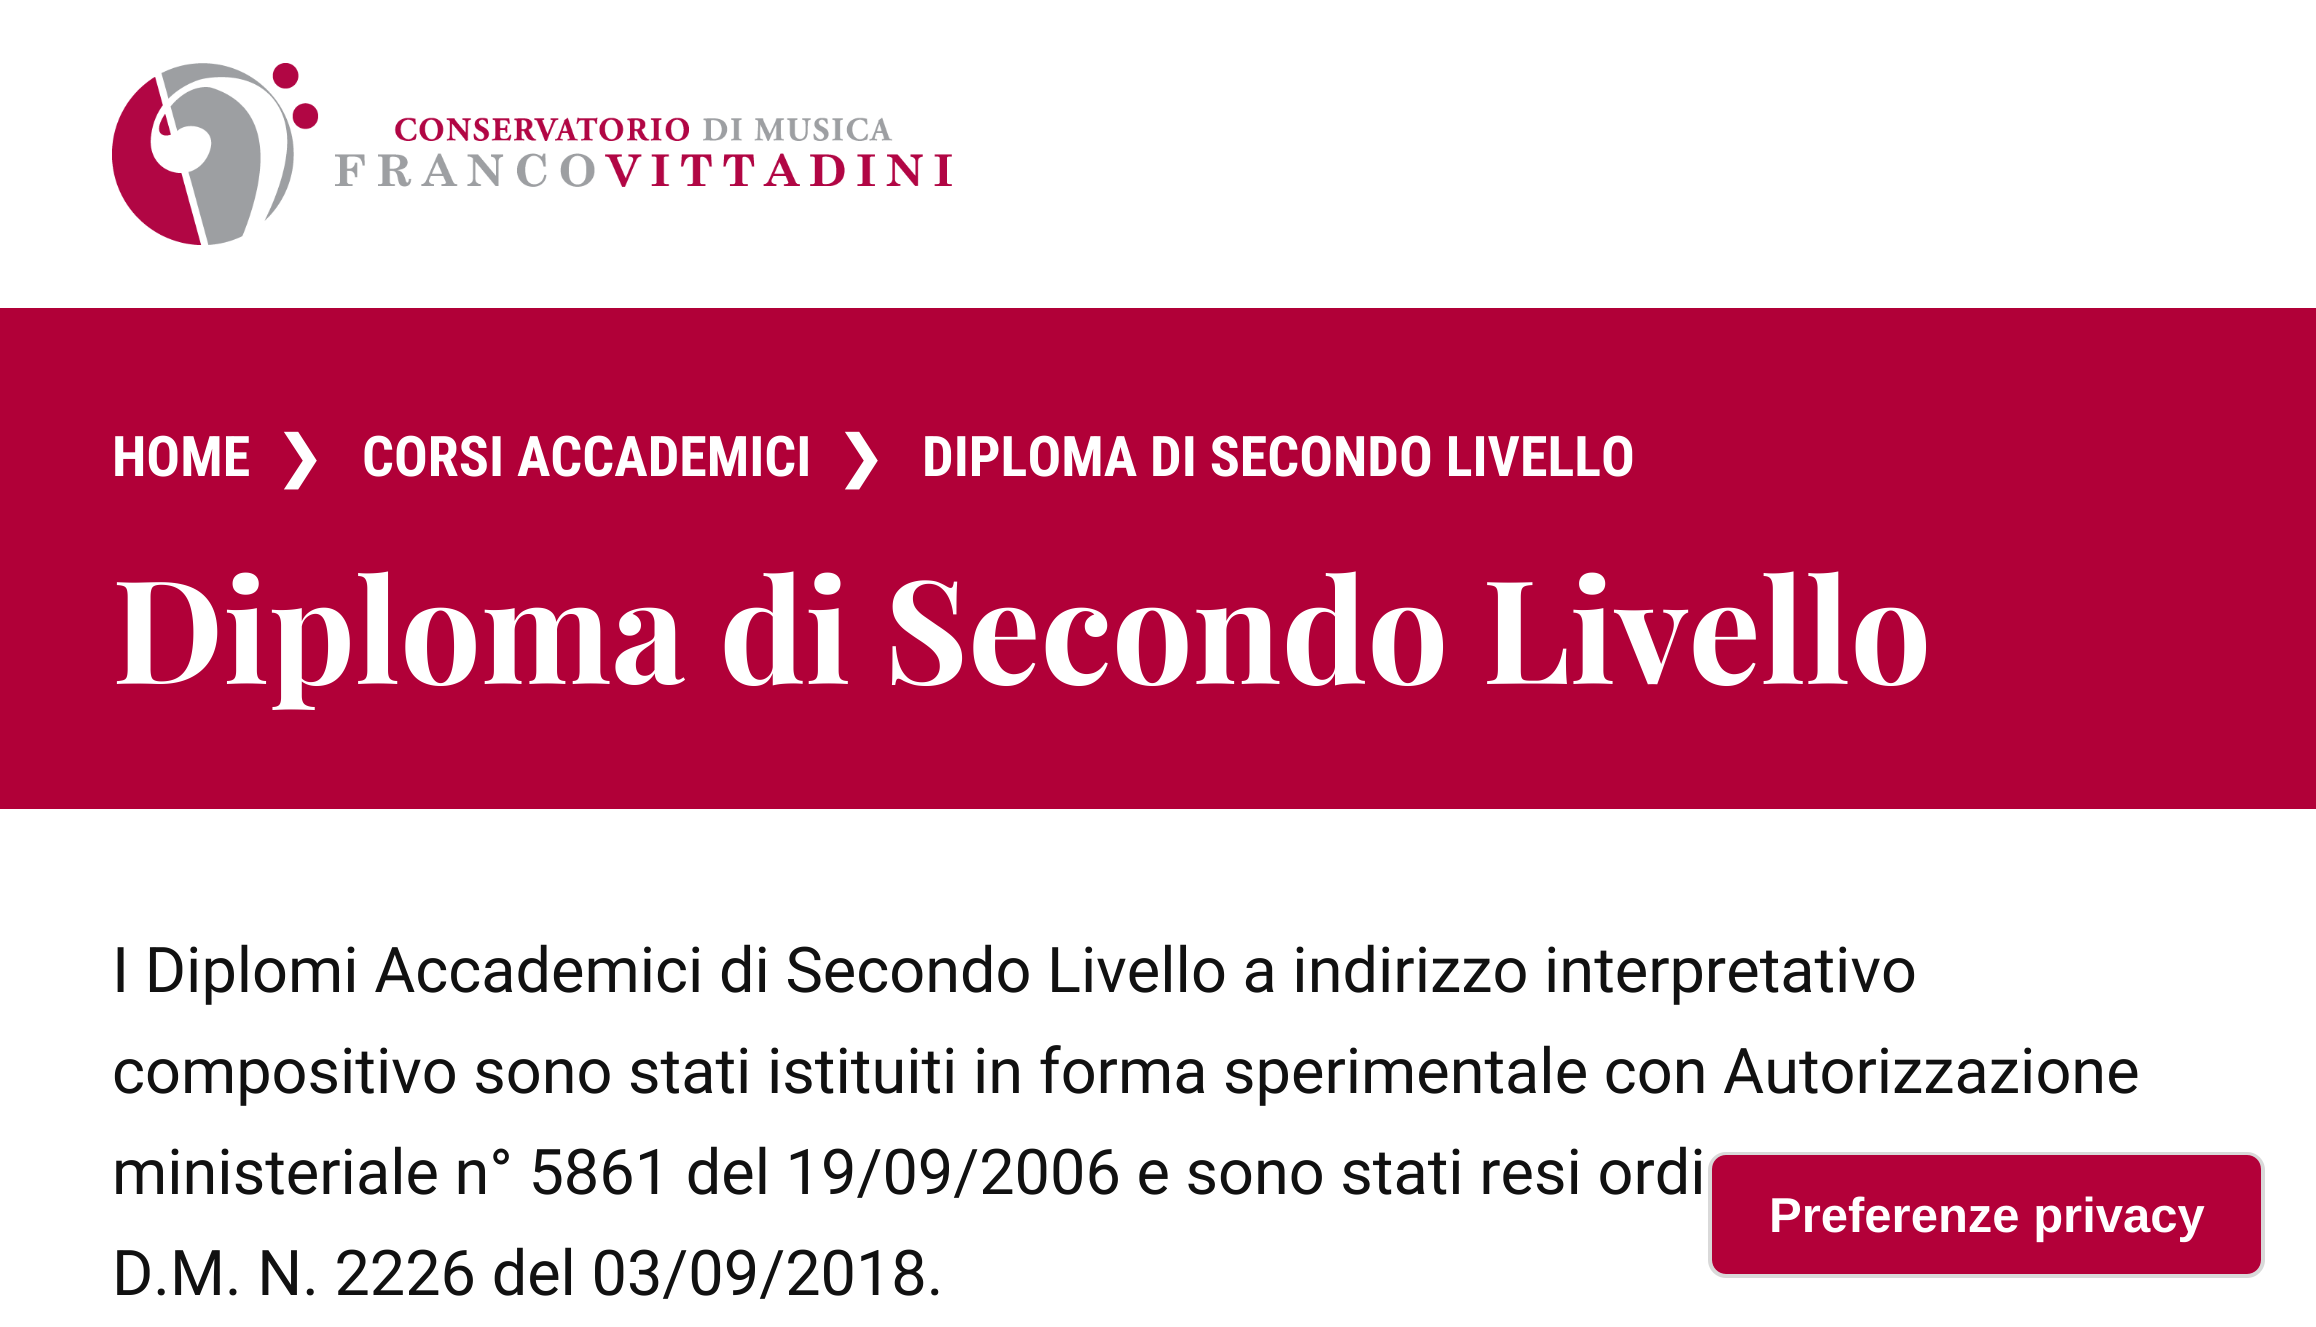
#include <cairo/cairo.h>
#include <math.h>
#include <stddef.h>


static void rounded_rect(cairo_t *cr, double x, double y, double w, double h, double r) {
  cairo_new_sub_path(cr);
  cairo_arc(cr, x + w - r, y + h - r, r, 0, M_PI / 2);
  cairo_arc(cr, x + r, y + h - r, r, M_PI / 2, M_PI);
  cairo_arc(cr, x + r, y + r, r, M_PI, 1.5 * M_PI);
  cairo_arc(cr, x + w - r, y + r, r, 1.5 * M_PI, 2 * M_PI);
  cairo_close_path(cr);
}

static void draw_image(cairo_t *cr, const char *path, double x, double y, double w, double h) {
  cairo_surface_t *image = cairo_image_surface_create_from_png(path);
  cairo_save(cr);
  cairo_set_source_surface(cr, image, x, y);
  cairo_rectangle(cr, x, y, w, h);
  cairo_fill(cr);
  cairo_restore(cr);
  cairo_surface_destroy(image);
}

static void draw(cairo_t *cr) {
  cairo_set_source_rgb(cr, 1, 1, 1);
  cairo_paint(cr);
  draw_image(cr, "images/1.png", 112, 63, 840, 182);
  cairo_set_source_rgb(cr, 177 / 255.0, 0, 56 / 255.0);
  cairo_rectangle(cr, 0, 308, 2316, 501);
  cairo_fill(cr);
  rounded_rect(cr, 1710, 1154, 553, 122, 16);
  cairo_set_source_rgba(cr, 0, 0, 0, 0.15);
  cairo_set_line_width(cr, 4);
  cairo_stroke(cr);
  cairo_set_source_rgb(cr, 179 / 255.0, 0, 57 / 255.0);
  rounded_rect(cr, 1712, 1155, 549, 119, 14);
  cairo_fill(cr);
  cairo_select_font_face(cr, "Roboto Condensed", CAIRO_FONT_SLANT_NORMAL, CAIRO_FONT_WEIGHT_BOLD);
  cairo_set_font_size(cr, 56);
  cairo_set_source_rgb(cr, 1, 1, 1);
  cairo_move_to(cr, 112, 476);
  cairo_show_text(cr, "HOME");
  cairo_select_font_face(cr, "DejaVu Sans", CAIRO_FONT_SLANT_NORMAL, CAIRO_FONT_WEIGHT_BOLD);
  cairo_move_to(cr, 276, 476);
  cairo_show_text(cr, "❯");
  cairo_select_font_face(cr, "Roboto Condensed", CAIRO_FONT_SLANT_NORMAL, CAIRO_FONT_WEIGHT_BOLD);
  cairo_move_to(cr, 362, 476);
  cairo_show_text(cr, "CORSI ACCADEMICI");
  cairo_select_font_face(cr, "DejaVu Sans", CAIRO_FONT_SLANT_NORMAL, CAIRO_FONT_WEIGHT_BOLD);
  cairo_move_to(cr, 837, 476);
  cairo_show_text(cr, "❯");
  cairo_select_font_face(cr, "Roboto Condensed", CAIRO_FONT_SLANT_NORMAL, CAIRO_FONT_WEIGHT_BOLD);
  cairo_move_to(cr, 922, 476);
  cairo_show_text(cr, "DIPLOMA DI SECONDO LIVELLO");
  cairo_select_font_face(cr, "Playfair Display", CAIRO_FONT_SLANT_NORMAL, CAIRO_FONT_WEIGHT_BOLD);
  cairo_set_font_size(cr, 143.8);
  cairo_move_to(cr, 112, 684);
  cairo_show_text(cr, "Diploma di Secondo Livello");
  cairo_select_font_face(cr, "Roboto", CAIRO_FONT_SLANT_NORMAL, CAIRO_FONT_WEIGHT_NORMAL);
  cairo_set_font_size(cr, 63);
  cairo_set_source_rgb(cr, 17 / 255.0, 17 / 255.0, 17 / 255.0);
  cairo_move_to(cr, 112, 992);
  cairo_show_text(cr, "I Diplomi Accademici di Secondo Livello a indirizzo interpretativo");
  cairo_move_to(cr, 112, 1093);
  cairo_show_text(cr, "compositivo sono stati istituiti in forma sperimentale con Autorizzazione");
  cairo_move_to(cr, 112, 1194);
  cairo_show_text(cr, "ministeriale n° 5861 del 19/09/2006 e sono stati resi ordi");
  cairo_move_to(cr, 112, 1295);
  cairo_show_text(cr, "D.M. N. 2226 del 03/09/2018.");
  cairo_select_font_face(cr, "Liberation Sans", CAIRO_FONT_SLANT_NORMAL, CAIRO_FONT_WEIGHT_BOLD);
  cairo_set_font_size(cr, 49);
  cairo_set_source_rgb(cr, 1, 1, 1);
  cairo_move_to(cr, 1769, 1232);
  cairo_show_text(cr, "Preferenze privacy");
}

int main(void) {
  cairo_surface_t *surface = cairo_image_surface_create(CAIRO_FORMAT_RGB24, 2316, 1327);
  cairo_t *cr = cairo_create(surface);
  cairo_font_options_t *options = cairo_font_options_create();
  cairo_font_options_set_hint_metrics(options, CAIRO_HINT_METRICS_OFF);
  cairo_font_options_set_hint_style(options, CAIRO_HINT_STYLE_NONE);
  cairo_set_font_options(cr, options);
  cairo_set_miter_limit(cr, 4);
  draw(cr);
  cairo_surface_write_to_png(surface, "out.png");
  cairo_font_options_destroy(options);
  cairo_destroy(cr);
  cairo_surface_destroy(surface);
  return 0;
}
